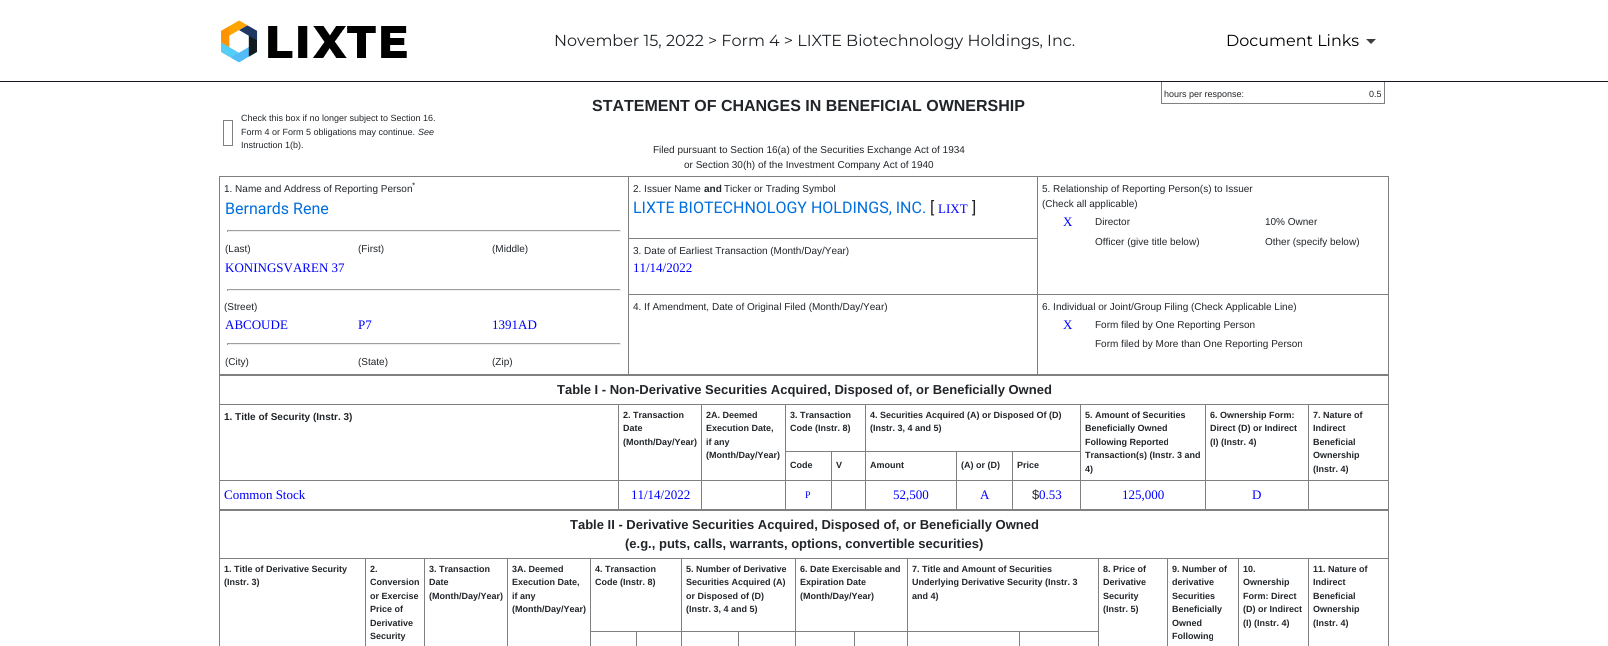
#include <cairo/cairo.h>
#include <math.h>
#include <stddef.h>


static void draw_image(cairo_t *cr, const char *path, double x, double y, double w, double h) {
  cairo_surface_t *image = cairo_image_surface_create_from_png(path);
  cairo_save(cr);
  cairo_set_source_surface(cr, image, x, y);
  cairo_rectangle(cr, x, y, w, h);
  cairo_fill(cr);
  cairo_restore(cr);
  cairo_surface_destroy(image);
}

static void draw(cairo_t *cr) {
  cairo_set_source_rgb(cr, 1, 1, 1);
  cairo_paint(cr);
  cairo_set_source_rgb(cr, 22 / 255.0, 25 / 255.0, 34 / 255.0);
  cairo_rectangle(cr, 0, 81, 1608, 1);
  cairo_fill(cr);
  draw_image(cr, "images/1.png", 221, 20, 186, 43);
  cairo_set_source_rgb(cr, 61 / 255.0, 61 / 255.0, 61 / 255.0);
  cairo_new_path(cr);
  cairo_move_to(cr, 1366, 39);
  cairo_line_to(cr, 1376, 39);
  cairo_line_to(cr, 1371, 44);
  cairo_close_path(cr);
  cairo_fill(cr);
  cairo_set_source_rgb(cr, 128 / 255.0, 128 / 255.0, 128 / 255.0);
  cairo_rectangle(cr, 223, 120, 10, 1);
  cairo_fill(cr);
  cairo_rectangle(cr, 232, 120, 1, 26);
  cairo_fill(cr);
  cairo_rectangle(cr, 223, 145, 10, 1);
  cairo_fill(cr);
  cairo_rectangle(cr, 223, 120, 1, 26);
  cairo_fill(cr);
  cairo_rectangle(cr, 1384, 82, 1, 22);
  cairo_fill(cr);
  cairo_rectangle(cr, 1161, 103, 224, 1);
  cairo_fill(cr);
  cairo_rectangle(cr, 1161, 82, 1, 22);
  cairo_fill(cr);
  cairo_rectangle(cr, 219, 176, 1170, 1);
  cairo_fill(cr);
  cairo_rectangle(cr, 1388, 176, 1, 199);
  cairo_fill(cr);
  cairo_rectangle(cr, 219, 374, 1170, 2);
  cairo_fill(cr);
  cairo_rectangle(cr, 219, 176, 1, 199);
  cairo_fill(cr);
  cairo_set_source_rgb(cr, 159 / 255.0, 159 / 255.0, 159 / 255.0);
  cairo_rectangle(cr, 227, 230, 394, 1);
  cairo_fill(cr);
  cairo_set_source_rgb(cr, 238 / 255.0, 238 / 255.0, 238 / 255.0);
  cairo_rectangle(cr, 620, 230, 1, 2);
  cairo_fill(cr);
  cairo_rectangle(cr, 227, 231, 394, 1);
  cairo_fill(cr);
  cairo_set_source_rgb(cr, 159 / 255.0, 159 / 255.0, 159 / 255.0);
  cairo_rectangle(cr, 227, 230, 1, 2);
  cairo_fill(cr);
  cairo_rectangle(cr, 227, 289, 394, 1);
  cairo_fill(cr);
  cairo_set_source_rgb(cr, 238 / 255.0, 238 / 255.0, 238 / 255.0);
  cairo_rectangle(cr, 620, 289, 1, 2);
  cairo_fill(cr);
  cairo_rectangle(cr, 227, 290, 394, 1);
  cairo_fill(cr);
  cairo_set_source_rgb(cr, 159 / 255.0, 159 / 255.0, 159 / 255.0);
  cairo_rectangle(cr, 227, 289, 1, 2);
  cairo_fill(cr);
  cairo_rectangle(cr, 227, 343, 394, 1);
  cairo_fill(cr);
  cairo_set_source_rgb(cr, 238 / 255.0, 238 / 255.0, 238 / 255.0);
  cairo_rectangle(cr, 620, 343, 1, 2);
  cairo_fill(cr);
  cairo_rectangle(cr, 227, 344, 394, 1);
  cairo_fill(cr);
  cairo_set_source_rgb(cr, 159 / 255.0, 159 / 255.0, 159 / 255.0);
  cairo_rectangle(cr, 227, 343, 1, 2);
  cairo_fill(cr);
  cairo_set_source_rgb(cr, 128 / 255.0, 128 / 255.0, 128 / 255.0);
  cairo_rectangle(cr, 628, 238, 410, 1);
  cairo_fill(cr);
  cairo_rectangle(cr, 1037, 294, 352, 1);
  cairo_fill(cr);
  cairo_rectangle(cr, 1037, 294, 1, 81);
  cairo_fill(cr);
  cairo_rectangle(cr, 628, 294, 410, 1);
  cairo_fill(cr);
  cairo_rectangle(cr, 1037, 176, 1, 119);
  cairo_fill(cr);
  cairo_rectangle(cr, 628, 294, 1, 81);
  cairo_fill(cr);
  cairo_rectangle(cr, 628, 176, 1, 119);
  cairo_fill(cr);
  cairo_rectangle(cr, 1388, 375, 1, 135);
  cairo_fill(cr);
  cairo_rectangle(cr, 219, 509, 1170, 2);
  cairo_fill(cr);
  cairo_rectangle(cr, 219, 375, 1, 271);
  cairo_fill(cr);
  cairo_rectangle(cr, 1308, 404, 81, 1);
  cairo_fill(cr);
  cairo_rectangle(cr, 1308, 480, 81, 1);
  cairo_fill(cr);
  cairo_rectangle(cr, 1308, 480, 1, 30);
  cairo_fill(cr);
  cairo_rectangle(cr, 1205, 480, 104, 1);
  cairo_fill(cr);
  cairo_rectangle(cr, 1308, 404, 1, 77);
  cairo_fill(cr);
  cairo_rectangle(cr, 1205, 404, 104, 1);
  cairo_fill(cr);
  cairo_rectangle(cr, 1205, 480, 1, 30);
  cairo_fill(cr);
  cairo_rectangle(cr, 1080, 480, 126, 1);
  cairo_fill(cr);
  cairo_rectangle(cr, 1205, 404, 1, 77);
  cairo_fill(cr);
  cairo_rectangle(cr, 1080, 404, 126, 1);
  cairo_fill(cr);
  cairo_rectangle(cr, 1012, 451, 69, 1);
  cairo_fill(cr);
  cairo_rectangle(cr, 1080, 480, 1, 30);
  cairo_fill(cr);
  cairo_rectangle(cr, 1012, 480, 69, 1);
  cairo_fill(cr);
  cairo_rectangle(cr, 1080, 404, 1, 77);
  cairo_fill(cr);
  cairo_rectangle(cr, 865, 404, 216, 1);
  cairo_fill(cr);
  cairo_rectangle(cr, 1012, 480, 1, 30);
  cairo_fill(cr);
  cairo_rectangle(cr, 956, 480, 57, 1);
  cairo_fill(cr);
  cairo_rectangle(cr, 1012, 451, 1, 30);
  cairo_fill(cr);
  cairo_rectangle(cr, 956, 451, 57, 1);
  cairo_fill(cr);
  cairo_rectangle(cr, 956, 480, 1, 30);
  cairo_fill(cr);
  cairo_rectangle(cr, 865, 480, 92, 1);
  cairo_fill(cr);
  cairo_rectangle(cr, 956, 451, 1, 30);
  cairo_fill(cr);
  cairo_rectangle(cr, 865, 451, 92, 1);
  cairo_fill(cr);
  cairo_rectangle(cr, 865, 480, 1, 30);
  cairo_fill(cr);
  cairo_rectangle(cr, 831, 480, 35, 1);
  cairo_fill(cr);
  cairo_rectangle(cr, 865, 451, 1, 30);
  cairo_fill(cr);
  cairo_rectangle(cr, 831, 451, 35, 1);
  cairo_fill(cr);
  cairo_rectangle(cr, 865, 404, 1, 48);
  cairo_fill(cr);
  cairo_rectangle(cr, 785, 404, 81, 1);
  cairo_fill(cr);
  cairo_rectangle(cr, 831, 480, 1, 30);
  cairo_fill(cr);
  cairo_rectangle(cr, 785, 480, 47, 1);
  cairo_fill(cr);
  cairo_rectangle(cr, 831, 451, 1, 30);
  cairo_fill(cr);
  cairo_rectangle(cr, 785, 451, 47, 1);
  cairo_fill(cr);
  cairo_rectangle(cr, 785, 480, 1, 30);
  cairo_fill(cr);
  cairo_rectangle(cr, 701, 480, 85, 1);
  cairo_fill(cr);
  cairo_rectangle(cr, 785, 451, 1, 30);
  cairo_fill(cr);
  cairo_rectangle(cr, 785, 404, 1, 48);
  cairo_fill(cr);
  cairo_rectangle(cr, 701, 404, 85, 1);
  cairo_fill(cr);
  cairo_rectangle(cr, 701, 480, 1, 30);
  cairo_fill(cr);
  cairo_rectangle(cr, 618, 480, 84, 1);
  cairo_fill(cr);
  cairo_rectangle(cr, 701, 404, 1, 77);
  cairo_fill(cr);
  cairo_rectangle(cr, 618, 404, 84, 1);
  cairo_fill(cr);
  cairo_rectangle(cr, 618, 480, 1, 30);
  cairo_fill(cr);
  cairo_rectangle(cr, 219, 480, 400, 1);
  cairo_fill(cr);
  cairo_rectangle(cr, 618, 404, 1, 77);
  cairo_fill(cr);
  cairo_rectangle(cr, 219, 404, 400, 1);
  cairo_fill(cr);
  cairo_rectangle(cr, 1388, 510, 1, 136);
  cairo_fill(cr);
  cairo_rectangle(cr, 1308, 558, 81, 1);
  cairo_fill(cr);
  cairo_rectangle(cr, 1308, 558, 1, 88);
  cairo_fill(cr);
  cairo_rectangle(cr, 1238, 558, 71, 1);
  cairo_fill(cr);
  cairo_rectangle(cr, 1238, 558, 1, 88);
  cairo_fill(cr);
  cairo_rectangle(cr, 1167, 558, 72, 1);
  cairo_fill(cr);
  cairo_rectangle(cr, 1167, 558, 1, 88);
  cairo_fill(cr);
  cairo_rectangle(cr, 1098, 558, 70, 1);
  cairo_fill(cr);
  cairo_rectangle(cr, 1019, 631, 80, 1);
  cairo_fill(cr);
  cairo_rectangle(cr, 1098, 558, 1, 88);
  cairo_fill(cr);
  cairo_rectangle(cr, 907, 558, 192, 1);
  cairo_fill(cr);
  cairo_rectangle(cr, 1019, 631, 1, 15);
  cairo_fill(cr);
  cairo_rectangle(cr, 907, 631, 113, 1);
  cairo_fill(cr);
  cairo_rectangle(cr, 907, 631, 1, 15);
  cairo_fill(cr);
  cairo_rectangle(cr, 854, 631, 54, 1);
  cairo_fill(cr);
  cairo_rectangle(cr, 907, 558, 1, 74);
  cairo_fill(cr);
  cairo_rectangle(cr, 795, 558, 113, 1);
  cairo_fill(cr);
  cairo_rectangle(cr, 854, 631, 1, 15);
  cairo_fill(cr);
  cairo_rectangle(cr, 795, 631, 60, 1);
  cairo_fill(cr);
  cairo_rectangle(cr, 795, 631, 1, 15);
  cairo_fill(cr);
  cairo_rectangle(cr, 738, 631, 58, 1);
  cairo_fill(cr);
  cairo_rectangle(cr, 795, 558, 1, 74);
  cairo_fill(cr);
  cairo_rectangle(cr, 681, 558, 115, 1);
  cairo_fill(cr);
  cairo_rectangle(cr, 738, 631, 1, 15);
  cairo_fill(cr);
  cairo_rectangle(cr, 681, 631, 58, 1);
  cairo_fill(cr);
  cairo_rectangle(cr, 681, 631, 1, 15);
  cairo_fill(cr);
  cairo_rectangle(cr, 636, 631, 46, 1);
  cairo_fill(cr);
  cairo_rectangle(cr, 681, 558, 1, 74);
  cairo_fill(cr);
  cairo_rectangle(cr, 590, 558, 92, 1);
  cairo_fill(cr);
  cairo_rectangle(cr, 636, 631, 1, 15);
  cairo_fill(cr);
  cairo_rectangle(cr, 590, 631, 47, 1);
  cairo_fill(cr);
  cairo_rectangle(cr, 590, 631, 1, 15);
  cairo_fill(cr);
  cairo_rectangle(cr, 590, 558, 1, 74);
  cairo_fill(cr);
  cairo_rectangle(cr, 507, 558, 84, 1);
  cairo_fill(cr);
  cairo_rectangle(cr, 507, 558, 1, 88);
  cairo_fill(cr);
  cairo_rectangle(cr, 424, 558, 84, 1);
  cairo_fill(cr);
  cairo_rectangle(cr, 424, 558, 1, 88);
  cairo_fill(cr);
  cairo_rectangle(cr, 365, 558, 60, 1);
  cairo_fill(cr);
  cairo_rectangle(cr, 365, 558, 1, 88);
  cairo_fill(cr);
  cairo_rectangle(cr, 219, 558, 147, 1);
  cairo_fill(cr);
  cairo_select_font_face(cr, "Montserrat Thin", CAIRO_FONT_SLANT_NORMAL, CAIRO_FONT_WEIGHT_NORMAL);
  cairo_set_font_size(cr, 16);
  cairo_set_source_rgb(cr, 33 / 255.0, 37 / 255.0, 41 / 255.0);
  cairo_move_to(cr, 554, 46);
  cairo_show_text(cr, "November 15, 2022 > Form 4 > LIXTE Biotechnology Holdings, Inc.");
  cairo_set_source_rgb(cr, 0, 0, 0);
  cairo_move_to(cr, 1226, 46);
  cairo_show_text(cr, "Document Links");
  cairo_select_font_face(cr, "Liberation Sans", CAIRO_FONT_SLANT_NORMAL, CAIRO_FONT_WEIGHT_NORMAL);
  cairo_set_font_size(cr, 9);
  cairo_set_source_rgb(cr, 33 / 255.0, 37 / 255.0, 41 / 255.0);
  cairo_move_to(cr, 241, 121);
  cairo_show_text(cr, "Check this box if no longer subject to Section 16.");
  cairo_move_to(cr, 241, 135);
  cairo_show_text(cr, "Form 4 or Form 5 obligations may continue.");
  cairo_select_font_face(cr, "Liberation Sans", CAIRO_FONT_SLANT_ITALIC, CAIRO_FONT_WEIGHT_NORMAL);
  cairo_move_to(cr, 418, 135);
  cairo_show_text(cr, "See");
  cairo_select_font_face(cr, "Liberation Sans", CAIRO_FONT_SLANT_NORMAL, CAIRO_FONT_WEIGHT_NORMAL);
  cairo_move_to(cr, 241, 148);
  cairo_show_text(cr, "Instruction 1(b).");
  cairo_move_to(cr, 1164, 97);
  cairo_show_text(cr, "hours per response:");
  cairo_move_to(cr, 1369, 97);
  cairo_show_text(cr, "0.5");
  cairo_select_font_face(cr, "Liberation Sans", CAIRO_FONT_SLANT_NORMAL, CAIRO_FONT_WEIGHT_BOLD);
  cairo_set_font_size(cr, 16);
  cairo_move_to(cr, 592, 111);
  cairo_show_text(cr, "STATEMENT OF CHANGES IN BENEFICIAL OWNERSHIP");
  cairo_select_font_face(cr, "Liberation Sans", CAIRO_FONT_SLANT_NORMAL, CAIRO_FONT_WEIGHT_NORMAL);
  cairo_set_font_size(cr, 10);
  cairo_move_to(cr, 653, 153);
  cairo_show_text(cr, "Filed pursuant to Section 16(a) of the Securities Exchange Act of 1934");
  cairo_move_to(cr, 684, 168);
  cairo_show_text(cr, "or Section 30(h) of the Investment Company Act of 1940");
  cairo_move_to(cr, 224, 192);
  cairo_show_text(cr, "1. Name and Address of Reporting Person");
  cairo_set_font_size(cr, 8);
  cairo_move_to(cr, 412, 188);
  cairo_show_text(cr, "*");
  cairo_select_font_face(cr, "Roboto", CAIRO_FONT_SLANT_NORMAL, CAIRO_FONT_WEIGHT_NORMAL);
  cairo_set_font_size(cr, 16);
  cairo_set_source_rgb(cr, 0, 110 / 255.0, 223 / 255.0);
  cairo_move_to(cr, 225, 214);
  cairo_show_text(cr, "Bernards Rene");
  cairo_select_font_face(cr, "Liberation Sans", CAIRO_FONT_SLANT_NORMAL, CAIRO_FONT_WEIGHT_NORMAL);
  cairo_set_font_size(cr, 10);
  cairo_set_source_rgb(cr, 33 / 255.0, 37 / 255.0, 41 / 255.0);
  cairo_move_to(cr, 225, 252);
  cairo_show_text(cr, "(Last)");
  cairo_move_to(cr, 358, 252);
  cairo_show_text(cr, "(First)");
  cairo_move_to(cr, 492, 252);
  cairo_show_text(cr, "(Middle)");
  cairo_select_font_face(cr, "Liberation Serif", CAIRO_FONT_SLANT_NORMAL, CAIRO_FONT_WEIGHT_NORMAL);
  cairo_set_font_size(cr, 13);
  cairo_set_source_rgb(cr, 0, 0, 1);
  cairo_move_to(cr, 225, 272);
  cairo_show_text(cr, "KONINGSVAREN 37");
  cairo_select_font_face(cr, "Liberation Sans", CAIRO_FONT_SLANT_NORMAL, CAIRO_FONT_WEIGHT_NORMAL);
  cairo_set_font_size(cr, 10);
  cairo_set_source_rgb(cr, 33 / 255.0, 37 / 255.0, 41 / 255.0);
  cairo_move_to(cr, 224, 310);
  cairo_show_text(cr, "(Street)");
  cairo_select_font_face(cr, "Liberation Serif", CAIRO_FONT_SLANT_NORMAL, CAIRO_FONT_WEIGHT_NORMAL);
  cairo_set_font_size(cr, 13);
  cairo_set_source_rgb(cr, 0, 0, 1);
  cairo_move_to(cr, 225, 329);
  cairo_show_text(cr, "ABCOUDE");
  cairo_move_to(cr, 358, 329);
  cairo_show_text(cr, "P7");
  cairo_move_to(cr, 492, 329);
  cairo_show_text(cr, "1391AD");
  cairo_select_font_face(cr, "Liberation Sans", CAIRO_FONT_SLANT_NORMAL, CAIRO_FONT_WEIGHT_NORMAL);
  cairo_set_font_size(cr, 10);
  cairo_set_source_rgb(cr, 33 / 255.0, 37 / 255.0, 41 / 255.0);
  cairo_move_to(cr, 225, 365);
  cairo_show_text(cr, "(City)");
  cairo_move_to(cr, 358, 365);
  cairo_show_text(cr, "(State)");
  cairo_move_to(cr, 492, 365);
  cairo_show_text(cr, "(Zip)");
  cairo_move_to(cr, 633, 192);
  cairo_show_text(cr, "2. Issuer Name");
  cairo_select_font_face(cr, "Liberation Sans", CAIRO_FONT_SLANT_NORMAL, CAIRO_FONT_WEIGHT_BOLD);
  cairo_move_to(cr, 704, 192);
  cairo_show_text(cr, "and");
  cairo_select_font_face(cr, "Liberation Sans", CAIRO_FONT_SLANT_NORMAL, CAIRO_FONT_WEIGHT_NORMAL);
  cairo_move_to(cr, 724, 192);
  cairo_show_text(cr, "Ticker or Trading Symbol");
  cairo_select_font_face(cr, "Roboto", CAIRO_FONT_SLANT_NORMAL, CAIRO_FONT_WEIGHT_NORMAL);
  cairo_set_font_size(cr, 16);
  cairo_set_source_rgb(cr, 0, 110 / 255.0, 223 / 255.0);
  cairo_move_to(cr, 633, 213);
  cairo_show_text(cr, "LIXTE BIOTECHNOLOGY HOLDINGS, INC.");
  cairo_set_source_rgb(cr, 33 / 255.0, 37 / 255.0, 41 / 255.0);
  cairo_move_to(cr, 930, 213);
  cairo_show_text(cr, "[");
  cairo_select_font_face(cr, "Liberation Serif", CAIRO_FONT_SLANT_NORMAL, CAIRO_FONT_WEIGHT_NORMAL);
  cairo_set_font_size(cr, 13);
  cairo_set_source_rgb(cr, 0, 0, 1);
  cairo_move_to(cr, 938, 213);
  cairo_show_text(cr, "LIXT");
  cairo_select_font_face(cr, "Roboto", CAIRO_FONT_SLANT_NORMAL, CAIRO_FONT_WEIGHT_NORMAL);
  cairo_set_font_size(cr, 16);
  cairo_set_source_rgb(cr, 33 / 255.0, 37 / 255.0, 41 / 255.0);
  cairo_move_to(cr, 972, 213);
  cairo_show_text(cr, "]");
  cairo_select_font_face(cr, "Liberation Sans", CAIRO_FONT_SLANT_NORMAL, CAIRO_FONT_WEIGHT_NORMAL);
  cairo_set_font_size(cr, 10);
  cairo_move_to(cr, 1042, 192);
  cairo_show_text(cr, "5. Relationship of Reporting Person(s) to Issuer");
  cairo_move_to(cr, 1042, 207);
  cairo_show_text(cr, "(Check all applicable)");
  cairo_select_font_face(cr, "Liberation Serif", CAIRO_FONT_SLANT_NORMAL, CAIRO_FONT_WEIGHT_NORMAL);
  cairo_set_font_size(cr, 13);
  cairo_set_source_rgb(cr, 0, 0, 1);
  cairo_move_to(cr, 1063, 226);
  cairo_show_text(cr, "X");
  cairo_select_font_face(cr, "Liberation Sans", CAIRO_FONT_SLANT_NORMAL, CAIRO_FONT_WEIGHT_NORMAL);
  cairo_set_font_size(cr, 10);
  cairo_set_source_rgb(cr, 33 / 255.0, 37 / 255.0, 41 / 255.0);
  cairo_move_to(cr, 1095, 225);
  cairo_show_text(cr, "Director");
  cairo_move_to(cr, 1265, 225);
  cairo_show_text(cr, "10% Owner");
  cairo_move_to(cr, 1095, 245);
  cairo_show_text(cr, "Officer (give title below)");
  cairo_move_to(cr, 1265, 245);
  cairo_show_text(cr, "Other (specify below)");
  cairo_move_to(cr, 633, 254);
  cairo_show_text(cr, "3. Date of Earliest Transaction (Month/Day/Year)");
  cairo_select_font_face(cr, "Liberation Serif", CAIRO_FONT_SLANT_NORMAL, CAIRO_FONT_WEIGHT_NORMAL);
  cairo_set_font_size(cr, 13);
  cairo_set_source_rgb(cr, 0, 0, 1);
  cairo_move_to(cr, 633, 272);
  cairo_show_text(cr, "11/14/2022");
  cairo_select_font_face(cr, "Liberation Sans", CAIRO_FONT_SLANT_NORMAL, CAIRO_FONT_WEIGHT_NORMAL);
  cairo_set_font_size(cr, 10);
  cairo_set_source_rgb(cr, 33 / 255.0, 37 / 255.0, 41 / 255.0);
  cairo_move_to(cr, 633, 310);
  cairo_show_text(cr, "4. If Amendment, Date of Original Filed (Month/Day/Year)");
  cairo_move_to(cr, 1042, 310);
  cairo_show_text(cr, "6. Individual or Joint/Group Filing (Check Applicable Line)");
  cairo_select_font_face(cr, "Liberation Serif", CAIRO_FONT_SLANT_NORMAL, CAIRO_FONT_WEIGHT_NORMAL);
  cairo_set_font_size(cr, 13);
  cairo_set_source_rgb(cr, 0, 0, 1);
  cairo_move_to(cr, 1063, 329);
  cairo_show_text(cr, "X");
  cairo_select_font_face(cr, "Liberation Sans", CAIRO_FONT_SLANT_NORMAL, CAIRO_FONT_WEIGHT_NORMAL);
  cairo_set_font_size(cr, 10);
  cairo_set_source_rgb(cr, 33 / 255.0, 37 / 255.0, 41 / 255.0);
  cairo_move_to(cr, 1095, 328);
  cairo_show_text(cr, "Form filed by One Reporting Person");
  cairo_move_to(cr, 1095, 347);
  cairo_show_text(cr, "Form filed by More than One Reporting Person");
  cairo_select_font_face(cr, "Liberation Sans", CAIRO_FONT_SLANT_NORMAL, CAIRO_FONT_WEIGHT_BOLD);
  cairo_set_font_size(cr, 13);
  cairo_move_to(cr, 557, 394);
  cairo_show_text(cr, "Table I - Non-Derivative Securities Acquired, Disposed of, or Beneficially Owned");
  cairo_set_font_size(cr, 10);
  cairo_move_to(cr, 224, 420);
  cairo_show_text(cr, "1. Title of Security (Instr. 3)");
  cairo_set_font_size(cr, 9);
  cairo_move_to(cr, 623, 418);
  cairo_show_text(cr, "2. Transaction");
  cairo_move_to(cr, 623, 431);
  cairo_show_text(cr, "Date");
  cairo_move_to(cr, 623, 445);
  cairo_show_text(cr, "(Month/Day/Year)");
  cairo_move_to(cr, 706, 418);
  cairo_show_text(cr, "2A. Deemed");
  cairo_move_to(cr, 706, 431);
  cairo_show_text(cr, "Execution Date,");
  cairo_move_to(cr, 706, 445);
  cairo_show_text(cr, "if any");
  cairo_move_to(cr, 706, 458);
  cairo_show_text(cr, "(Month/Day/Year)");
  cairo_move_to(cr, 790, 418);
  cairo_show_text(cr, "3. Transaction");
  cairo_move_to(cr, 790, 431);
  cairo_show_text(cr, "Code (Instr. 8)");
  cairo_move_to(cr, 870, 418);
  cairo_show_text(cr, "4. Securities Acquired (A) or Disposed Of (D)");
  cairo_move_to(cr, 870, 431);
  cairo_show_text(cr, "(Instr. 3, 4 and 5)");
  cairo_move_to(cr, 1085, 418);
  cairo_show_text(cr, "5. Amount of Securities");
  cairo_move_to(cr, 1085, 431);
  cairo_show_text(cr, "Beneficially Owned");
  cairo_move_to(cr, 1085, 445);
  cairo_show_text(cr, "Following Reported");
  cairo_move_to(cr, 1085, 458);
  cairo_show_text(cr, "Transaction(s) (Instr. 3 and");
  cairo_move_to(cr, 1085, 472);
  cairo_show_text(cr, "4)");
  cairo_move_to(cr, 1210, 418);
  cairo_show_text(cr, "6. Ownership Form:");
  cairo_move_to(cr, 1210, 431);
  cairo_show_text(cr, "Direct (D) or Indirect");
  cairo_move_to(cr, 1210, 445);
  cairo_show_text(cr, "(I) (Instr. 4)");
  cairo_move_to(cr, 1313, 418);
  cairo_show_text(cr, "7. Nature of");
  cairo_move_to(cr, 1313, 431);
  cairo_show_text(cr, "Indirect");
  cairo_move_to(cr, 1313, 445);
  cairo_show_text(cr, "Beneficial");
  cairo_move_to(cr, 1313, 458);
  cairo_show_text(cr, "Ownership");
  cairo_move_to(cr, 1313, 472);
  cairo_show_text(cr, "(Instr. 4)");
  cairo_move_to(cr, 790, 468);
  cairo_show_text(cr, "Code");
  cairo_move_to(cr, 836, 468);
  cairo_show_text(cr, "V");
  cairo_move_to(cr, 870, 468);
  cairo_show_text(cr, "Amount");
  cairo_move_to(cr, 961, 468);
  cairo_show_text(cr, "(A) or (D)");
  cairo_move_to(cr, 1017, 468);
  cairo_show_text(cr, "Price");
  cairo_select_font_face(cr, "Liberation Serif", CAIRO_FONT_SLANT_NORMAL, CAIRO_FONT_WEIGHT_NORMAL);
  cairo_set_font_size(cr, 13);
  cairo_set_source_rgb(cr, 0, 0, 1);
  cairo_move_to(cr, 224, 499);
  cairo_show_text(cr, "Common Stock");
  cairo_move_to(cr, 631, 499);
  cairo_show_text(cr, "11/14/2022");
  cairo_set_font_size(cr, 10);
  cairo_move_to(cr, 805, 498);
  cairo_show_text(cr, "P");
  cairo_set_font_size(cr, 13);
  cairo_move_to(cr, 893, 499);
  cairo_show_text(cr, "52,500");
  cairo_move_to(cr, 980, 499);
  cairo_show_text(cr, "A");
  cairo_select_font_face(cr, "Liberation Sans", CAIRO_FONT_SLANT_NORMAL, CAIRO_FONT_WEIGHT_NORMAL);
  cairo_set_source_rgb(cr, 33 / 255.0, 37 / 255.0, 41 / 255.0);
  cairo_move_to(cr, 1032, 499);
  cairo_show_text(cr, "$");
  cairo_select_font_face(cr, "Liberation Serif", CAIRO_FONT_SLANT_NORMAL, CAIRO_FONT_WEIGHT_NORMAL);
  cairo_set_source_rgb(cr, 0, 0, 1);
  cairo_move_to(cr, 1039, 499);
  cairo_show_text(cr, "0.53");
  cairo_move_to(cr, 1122, 499);
  cairo_show_text(cr, "125,000");
  cairo_move_to(cr, 1252, 499);
  cairo_show_text(cr, "D");
  cairo_select_font_face(cr, "Liberation Sans", CAIRO_FONT_SLANT_NORMAL, CAIRO_FONT_WEIGHT_BOLD);
  cairo_set_source_rgb(cr, 33 / 255.0, 37 / 255.0, 41 / 255.0);
  cairo_move_to(cr, 570, 529);
  cairo_show_text(cr, "Table II - Derivative Securities Acquired, Disposed of, or Beneficially Owned");
  cairo_move_to(cr, 625, 548);
  cairo_show_text(cr, "(e.g., puts, calls, warrants, options, convertible securities)");
  cairo_set_font_size(cr, 9);
  cairo_move_to(cr, 224, 572);
  cairo_show_text(cr, "1. Title of Derivative Security");
  cairo_move_to(cr, 224, 585);
  cairo_show_text(cr, "(Instr. 3)");
  cairo_move_to(cr, 370, 572);
  cairo_show_text(cr, "2.");
  cairo_move_to(cr, 370, 585);
  cairo_show_text(cr, "Conversion");
  cairo_move_to(cr, 370, 599);
  cairo_show_text(cr, "or Exercise");
  cairo_move_to(cr, 370, 612);
  cairo_show_text(cr, "Price of");
  cairo_move_to(cr, 370, 626);
  cairo_show_text(cr, "Derivative");
  cairo_move_to(cr, 370, 639);
  cairo_show_text(cr, "Security");
  cairo_move_to(cr, 429, 572);
  cairo_show_text(cr, "3. Transaction");
  cairo_move_to(cr, 429, 585);
  cairo_show_text(cr, "Date");
  cairo_move_to(cr, 429, 599);
  cairo_show_text(cr, "(Month/Day/Year)");
  cairo_move_to(cr, 512, 572);
  cairo_show_text(cr, "3A. Deemed");
  cairo_move_to(cr, 512, 585);
  cairo_show_text(cr, "Execution Date,");
  cairo_move_to(cr, 512, 599);
  cairo_show_text(cr, "if any");
  cairo_move_to(cr, 512, 612);
  cairo_show_text(cr, "(Month/Day/Year)");
  cairo_move_to(cr, 595, 572);
  cairo_show_text(cr, "4. Transaction");
  cairo_move_to(cr, 595, 585);
  cairo_show_text(cr, "Code (Instr. 8)");
  cairo_move_to(cr, 686, 572);
  cairo_show_text(cr, "5. Number of Derivative");
  cairo_move_to(cr, 686, 585);
  cairo_show_text(cr, "Securities Acquired (A)");
  cairo_move_to(cr, 686, 599);
  cairo_show_text(cr, "or Disposed of (D)");
  cairo_move_to(cr, 686, 612);
  cairo_show_text(cr, "(Instr. 3, 4 and 5)");
  cairo_move_to(cr, 800, 572);
  cairo_show_text(cr, "6. Date Exercisable and");
  cairo_move_to(cr, 800, 585);
  cairo_show_text(cr, "Expiration Date");
  cairo_move_to(cr, 800, 599);
  cairo_show_text(cr, "(Month/Day/Year)");
  cairo_move_to(cr, 912, 572);
  cairo_show_text(cr, "7. Title and Amount of Securities");
  cairo_move_to(cr, 912, 585);
  cairo_show_text(cr, "Underlying Derivative Security (Instr. 3");
  cairo_move_to(cr, 912, 599);
  cairo_show_text(cr, "and 4)");
  cairo_move_to(cr, 1103, 572);
  cairo_show_text(cr, "8. Price of");
  cairo_move_to(cr, 1103, 585);
  cairo_show_text(cr, "Derivative");
  cairo_move_to(cr, 1103, 599);
  cairo_show_text(cr, "Security");
  cairo_move_to(cr, 1103, 612);
  cairo_show_text(cr, "(Instr. 5)");
  cairo_move_to(cr, 1172, 572);
  cairo_show_text(cr, "9. Number of");
  cairo_move_to(cr, 1172, 585);
  cairo_show_text(cr, "derivative");
  cairo_move_to(cr, 1172, 599);
  cairo_show_text(cr, "Securities");
  cairo_move_to(cr, 1172, 612);
  cairo_show_text(cr, "Beneficially");
  cairo_move_to(cr, 1172, 626);
  cairo_show_text(cr, "Owned");
  cairo_move_to(cr, 1172, 639);
  cairo_show_text(cr, "Following");
  cairo_move_to(cr, 1243, 572);
  cairo_show_text(cr, "10.");
  cairo_move_to(cr, 1243, 585);
  cairo_show_text(cr, "Ownership");
  cairo_move_to(cr, 1243, 599);
  cairo_show_text(cr, "Form: Direct");
  cairo_move_to(cr, 1243, 612);
  cairo_show_text(cr, "(D) or Indirect");
  cairo_move_to(cr, 1243, 626);
  cairo_show_text(cr, "(I) (Instr. 4)");
  cairo_move_to(cr, 1313, 572);
  cairo_show_text(cr, "11. Nature of");
  cairo_move_to(cr, 1313, 585);
  cairo_show_text(cr, "Indirect");
  cairo_move_to(cr, 1313, 599);
  cairo_show_text(cr, "Beneficial");
  cairo_move_to(cr, 1313, 612);
  cairo_show_text(cr, "Ownership");
  cairo_move_to(cr, 1313, 626);
  cairo_show_text(cr, "(Instr. 4)");
}

int main(void) {
  cairo_surface_t *surface = cairo_image_surface_create(CAIRO_FORMAT_RGB24, 1608, 646);
  cairo_t *cr = cairo_create(surface);
  cairo_font_options_t *options = cairo_font_options_create();
  cairo_font_options_set_hint_metrics(options, CAIRO_HINT_METRICS_OFF);
  cairo_font_options_set_hint_style(options, CAIRO_HINT_STYLE_NONE);
  cairo_set_font_options(cr, options);
  cairo_set_miter_limit(cr, 4);
  draw(cr);
  cairo_surface_write_to_png(surface, "out.png");
  cairo_font_options_destroy(options);
  cairo_destroy(cr);
  cairo_surface_destroy(surface);
  return 0;
}
